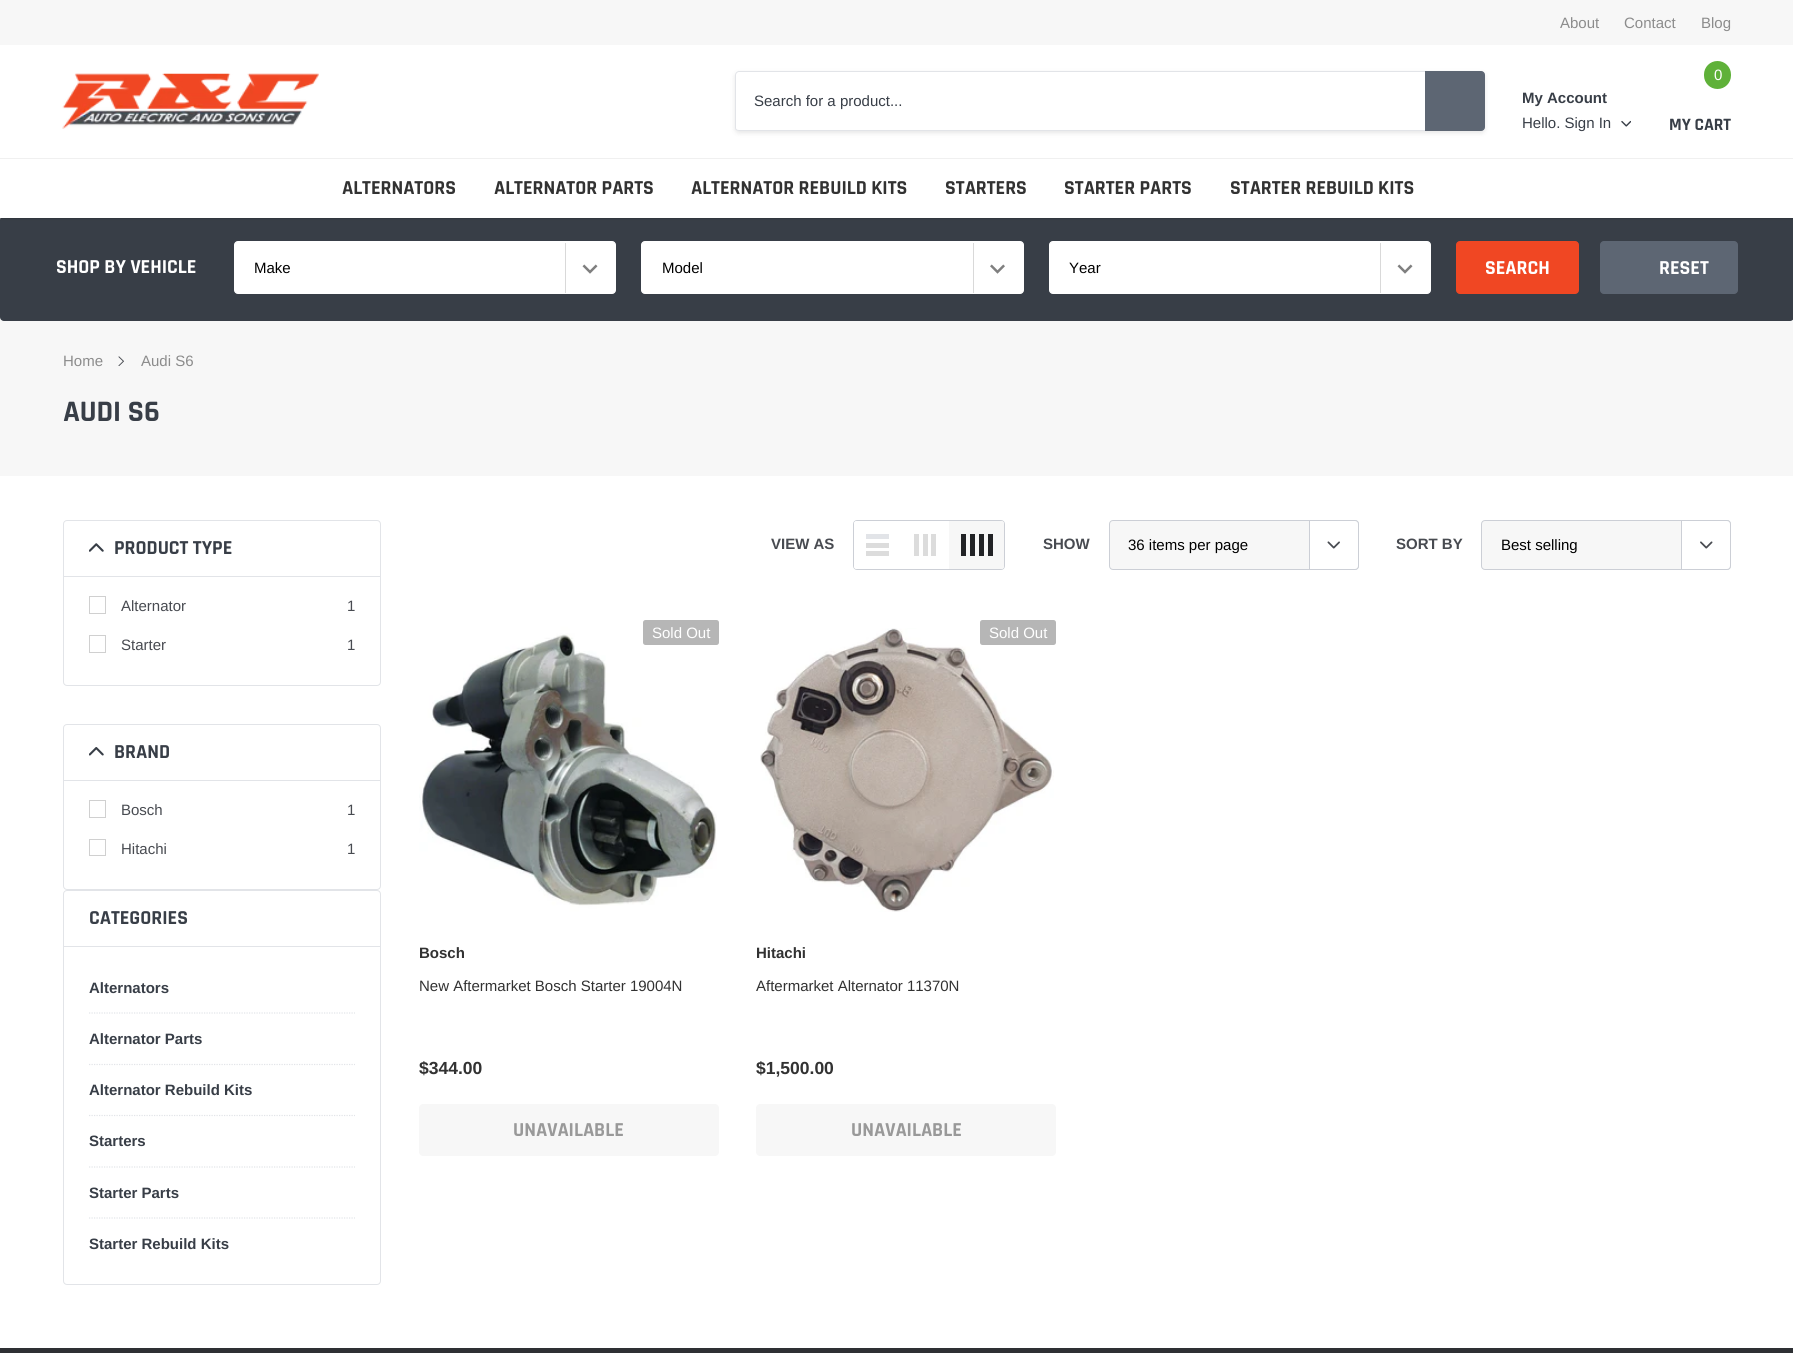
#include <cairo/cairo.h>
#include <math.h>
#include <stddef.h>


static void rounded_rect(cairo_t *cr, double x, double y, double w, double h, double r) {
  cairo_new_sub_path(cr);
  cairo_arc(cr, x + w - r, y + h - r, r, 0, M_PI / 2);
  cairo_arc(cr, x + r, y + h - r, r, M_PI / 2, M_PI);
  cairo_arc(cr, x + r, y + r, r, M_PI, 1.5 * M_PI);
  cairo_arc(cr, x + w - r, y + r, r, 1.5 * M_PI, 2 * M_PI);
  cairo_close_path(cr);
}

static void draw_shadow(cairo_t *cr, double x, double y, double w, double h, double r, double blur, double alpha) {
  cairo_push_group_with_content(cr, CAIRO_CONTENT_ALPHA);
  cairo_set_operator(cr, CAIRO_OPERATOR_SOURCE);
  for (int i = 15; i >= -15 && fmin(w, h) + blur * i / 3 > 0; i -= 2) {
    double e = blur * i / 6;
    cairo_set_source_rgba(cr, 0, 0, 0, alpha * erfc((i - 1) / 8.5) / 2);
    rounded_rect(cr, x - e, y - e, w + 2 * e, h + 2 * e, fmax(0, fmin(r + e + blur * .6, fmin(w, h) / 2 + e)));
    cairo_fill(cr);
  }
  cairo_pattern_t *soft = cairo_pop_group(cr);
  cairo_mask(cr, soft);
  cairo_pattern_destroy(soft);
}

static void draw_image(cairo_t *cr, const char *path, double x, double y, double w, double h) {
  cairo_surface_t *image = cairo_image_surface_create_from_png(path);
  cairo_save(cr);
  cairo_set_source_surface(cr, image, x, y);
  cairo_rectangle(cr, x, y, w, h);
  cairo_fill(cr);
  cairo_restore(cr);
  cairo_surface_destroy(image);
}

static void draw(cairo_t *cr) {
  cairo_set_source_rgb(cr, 1, 1, 1);
  cairo_paint(cr);
  cairo_set_source_rgb(cr, 247 / 255.0, 247 / 255.0, 247 / 255.0);
  cairo_rectangle(cr, 0, 218, 1793, 258);
  cairo_fill(cr);
  cairo_set_source_rgb(cr, 56 / 255.0, 62 / 255.0, 71 / 255.0);
  rounded_rect(cr, 0, 216, 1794, 105, 4);
  cairo_fill(cr);
  cairo_set_source_rgb(cr, 0, 0, 0);
  draw_shadow(cr, 0, 1, 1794, 218, 0, 1, 0.1);
  cairo_rectangle(cr, -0.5, -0.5, 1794, 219);
  cairo_set_source_rgba(cr, 0, 0, 0, 0.06);
  cairo_set_line_width(cr, 1);
  cairo_stroke(cr);
  cairo_set_source_rgb(cr, 1, 1, 1);
  cairo_rectangle(cr, 0, 45, 1793, 173);
  cairo_fill(cr);
  cairo_set_source_rgb(cr, 247 / 255.0, 247 / 255.0, 247 / 255.0);
  cairo_rectangle(cr, 0, 0, 1793, 45);
  cairo_fill(cr);
  draw_image(cr, "images/1.png", 62, 73, 257, 56);
  cairo_set_source_rgb(cr, 0, 0, 0);
  draw_shadow(cr, 735, 73, 750, 60, 4, 2.5, 0.1);
  cairo_set_source_rgb(cr, 1, 1, 1);
  rounded_rect(cr, 735, 71, 750, 60, 4);
  cairo_fill(cr);
  cairo_set_source_rgb(cr, 226 / 255.0, 228 / 255.0, 232 / 255.0);
  cairo_set_fill_rule(cr, CAIRO_FILL_RULE_EVEN_ODD);
  cairo_new_path(cr);
  cairo_move_to(cr, 739, 71);
  cairo_line_to(cr, 1425, 71);
  cairo_line_to(cr, 1425, 131);
  cairo_line_to(cr, 739, 131);
  cairo_curve_to(cr, 737, 131, 735, 130, 735, 128);
  cairo_line_to(cr, 735, 75);
  cairo_curve_to(cr, 735, 73, 737, 71, 739, 71);
  cairo_close_path(cr);
  cairo_move_to(cr, 739, 72);
  cairo_line_to(cr, 1425, 72);
  cairo_line_to(cr, 1425, 130);
  cairo_line_to(cr, 739, 130);
  cairo_curve_to(cr, 737, 130, 736, 129, 736, 128);
  cairo_line_to(cr, 736, 75);
  cairo_curve_to(cr, 736, 74, 737, 72, 739, 72);
  cairo_close_path(cr);
  cairo_fill(cr);
  cairo_set_source_rgb(cr, 93 / 255.0, 102 / 255.0, 115 / 255.0);
  cairo_new_path(cr);
  cairo_move_to(cr, 1425.5, 71.5);
  cairo_line_to(cr, 1481, 71.5);
  cairo_curve_to(cr, 1483, 71.5, 1484.5, 73, 1484.5, 75);
  cairo_line_to(cr, 1484.5, 127);
  cairo_curve_to(cr, 1484.5, 129, 1483, 130.5, 1481, 130.5);
  cairo_line_to(cr, 1425.5, 130.5);
  cairo_close_path(cr);
  cairo_fill_preserve(cr);
  cairo_stroke(cr);
  draw_image(cr, "images/2.png", 1621, 120, 10, 7);
  cairo_set_source_rgb(cr, 95 / 255.0, 177 / 255.0, 57 / 255.0);
  rounded_rect(cr, 1704, 61, 27, 28, 13.5);
  cairo_fill(cr);
  cairo_set_source_rgb(cr, 240 / 255.0, 240 / 255.0, 240 / 255.0);
  cairo_rectangle(cr, 0, 158, 1793, 1);
  cairo_fill(cr);
  cairo_set_source_rgb(cr, 1, 1, 1);
  rounded_rect(cr, 234.5, 241.5, 381, 52, 3.5);
  cairo_fill_preserve(cr);
  cairo_stroke(cr);
  cairo_set_source_rgb(cr, 217 / 255.0, 217 / 255.0, 217 / 255.0);
  cairo_rectangle(cr, 565, 243, 1, 50);
  cairo_fill(cr);
  draw_image(cr, "images/3.png", 582, 264, 16, 10);
  cairo_set_source_rgb(cr, 1, 1, 1);
  rounded_rect(cr, 641.5, 241.5, 382, 52, 3.5);
  cairo_fill_preserve(cr);
  cairo_stroke(cr);
  cairo_set_source_rgb(cr, 217 / 255.0, 217 / 255.0, 217 / 255.0);
  cairo_rectangle(cr, 973, 243, 1, 50);
  cairo_fill(cr);
  draw_image(cr, "images/4.png", 990, 264, 15, 10);
  cairo_set_source_rgb(cr, 1, 1, 1);
  rounded_rect(cr, 1049.5, 241.5, 381, 52, 3.5);
  cairo_fill_preserve(cr);
  cairo_stroke(cr);
  cairo_set_source_rgb(cr, 217 / 255.0, 217 / 255.0, 217 / 255.0);
  cairo_rectangle(cr, 1380, 243, 1, 50);
  cairo_fill(cr);
  draw_image(cr, "images/3.png", 1397, 264, 16, 10);
  cairo_set_source_rgb(cr, 240 / 255.0, 71 / 255.0, 35 / 255.0);
  rounded_rect(cr, 1456.5, 241.5, 122, 52, 3.5);
  cairo_fill_preserve(cr);
  cairo_stroke(cr);
  cairo_set_source_rgb(cr, 93 / 255.0, 102 / 255.0, 115 / 255.0);
  rounded_rect(cr, 1600.5, 241.5, 137, 52, 3.5);
  cairo_fill_preserve(cr);
  cairo_stroke(cr);
  draw_image(cr, "images/5.png", 118, 356, 6, 10);
  rounded_rect(cr, 63.5, 520.5, 317, 165, 3.5);
  cairo_set_source_rgb(cr, 226 / 255.0, 228 / 255.0, 232 / 255.0);
  cairo_stroke(cr);
  cairo_rectangle(cr, 64, 576, 316, 1);
  cairo_fill(cr);
  draw_image(cr, "images/6.png", 89, 543, 15, 9);
  cairo_rectangle(cr, 89.5, 596.5, 16, 17);
  cairo_set_source_rgb(cr, 208 / 255.0, 208 / 255.0, 208 / 255.0);
  cairo_stroke(cr);
  cairo_rectangle(cr, 89.5, 635.5, 16, 17);
  cairo_stroke(cr);
  rounded_rect(cr, 63.5, 724.5, 317, 165, 3.5);
  cairo_set_source_rgb(cr, 226 / 255.0, 228 / 255.0, 232 / 255.0);
  cairo_stroke(cr);
  cairo_rectangle(cr, 64, 780, 316, 1);
  cairo_fill(cr);
  draw_image(cr, "images/7.png", 89, 747, 15, 9);
  cairo_rectangle(cr, 89.5, 800.5, 16, 17);
  cairo_set_source_rgb(cr, 208 / 255.0, 208 / 255.0, 208 / 255.0);
  cairo_stroke(cr);
  cairo_rectangle(cr, 89.5, 839.5, 16, 16);
  cairo_stroke(cr);
  rounded_rect(cr, 63.5, 890.5, 317, 394, 3.5);
  cairo_set_source_rgb(cr, 226 / 255.0, 228 / 255.0, 232 / 255.0);
  cairo_stroke(cr);
  cairo_rectangle(cr, 64, 946, 316, 1);
  cairo_fill(cr);
  cairo_new_path(cr);
  cairo_move_to(cr, 89, 1013);
  cairo_line_to(cr, 355, 1013);
  cairo_set_line_width(cr, 1.2);
  cairo_set_dash(cr, (double[]){1.25, 1.25}, 2, 0);
  cairo_stroke(cr);
  cairo_new_path(cr);
  cairo_move_to(cr, 89, 1064.5);
  cairo_line_to(cr, 355, 1064.5);
  cairo_stroke(cr);
  cairo_new_path(cr);
  cairo_move_to(cr, 89, 1115.5);
  cairo_line_to(cr, 355, 1115.5);
  cairo_stroke(cr);
  cairo_new_path(cr);
  cairo_move_to(cr, 89, 1167);
  cairo_line_to(cr, 355, 1167);
  cairo_stroke(cr);
  cairo_new_path(cr);
  cairo_move_to(cr, 89, 1218);
  cairo_line_to(cr, 355, 1218);
  cairo_stroke(cr);
  rounded_rect(cr, 853.5, 520.5, 151, 49, 3.5);
  cairo_set_source_rgb(cr, 204 / 255.0, 207 / 255.0, 214 / 255.0);
  cairo_set_line_width(cr, 1);
  cairo_set_dash(cr, NULL, 0, 0);
  cairo_stroke(cr);
  cairo_set_source_rgb(cr, 1, 1, 1);
  cairo_new_path(cr);
  cairo_move_to(cr, 856.5, 521);
  cairo_line_to(cr, 901, 521);
  cairo_line_to(cr, 901, 569);
  cairo_line_to(cr, 856.5, 569);
  cairo_curve_to(cr, 855, 569, 854, 568, 854, 566.5);
  cairo_line_to(cr, 854, 523.5);
  cairo_curve_to(cr, 854, 522, 855, 521, 856.5, 521);
  cairo_close_path(cr);
  cairo_fill(cr);
  cairo_set_source_rgb(cr, 220 / 255.0, 220 / 255.0, 220 / 255.0);
  cairo_rectangle(cr, 866, 551, 23, 5);
  cairo_fill(cr);
  cairo_rectangle(cr, 866, 543, 23, 5);
  cairo_fill(cr);
  cairo_set_source_rgb(cr, 226 / 255.0, 228 / 255.0, 232 / 255.0);
  cairo_rectangle(cr, 866, 534, 23, 5);
  cairo_fill(cr);
  cairo_set_source_rgb(cr, 220 / 255.0, 220 / 255.0, 220 / 255.0);
  cairo_rectangle(cr, 931, 534, 5, 22);
  cairo_fill(cr);
  cairo_rectangle(cr, 923, 534, 5, 22);
  cairo_fill(cr);
  cairo_rectangle(cr, 914, 534, 5, 22);
  cairo_fill(cr);
  cairo_set_source_rgb(cr, 247 / 255.0, 247 / 255.0, 247 / 255.0);
  cairo_new_path(cr);
  cairo_move_to(cr, 949, 521);
  cairo_line_to(cr, 1001.5, 521);
  cairo_curve_to(cr, 1003, 521, 1004, 522, 1004, 523.5);
  cairo_line_to(cr, 1004, 566.5);
  cairo_curve_to(cr, 1004, 568, 1003, 569, 1001.5, 569);
  cairo_line_to(cr, 949, 569);
  cairo_close_path(cr);
  cairo_fill(cr);
  cairo_set_source_rgb(cr, 34 / 255.0, 35 / 255.0, 38 / 255.0);
  cairo_rectangle(cr, 988, 534, 5, 22);
  cairo_fill(cr);
  cairo_rectangle(cr, 979, 534, 5, 22);
  cairo_fill(cr);
  cairo_rectangle(cr, 970, 534, 5, 22);
  cairo_fill(cr);
  cairo_rectangle(cr, 961, 534, 5, 22);
  cairo_fill(cr);
  cairo_set_source_rgb(cr, 247 / 255.0, 247 / 255.0, 247 / 255.0);
  rounded_rect(cr, 1109.5, 520.5, 249, 49, 3.5);
  cairo_fill_preserve(cr);
  cairo_set_source_rgb(cr, 204 / 255.0, 207 / 255.0, 214 / 255.0);
  cairo_stroke(cr);
  cairo_set_source_rgb(cr, 1, 1, 1);
  cairo_new_path(cr);
  cairo_move_to(cr, 1309.5, 520.5);
  cairo_line_to(cr, 1355, 520.5);
  cairo_curve_to(cr, 1357, 520.5, 1358.5, 522, 1358.5, 524);
  cairo_line_to(cr, 1358.5, 566);
  cairo_curve_to(cr, 1358.5, 568, 1357, 569.5, 1355, 569.5);
  cairo_line_to(cr, 1309.5, 569.5);
  cairo_close_path(cr);
  cairo_fill_preserve(cr);
  cairo_set_source_rgb(cr, 204 / 255.0, 207 / 255.0, 214 / 255.0);
  cairo_stroke(cr);
  draw_image(cr, "images/8.png", 1327, 541, 13, 8);
  cairo_set_source_rgb(cr, 247 / 255.0, 247 / 255.0, 247 / 255.0);
  rounded_rect(cr, 1481.5, 520.5, 249, 49, 3.5);
  cairo_fill_preserve(cr);
  cairo_set_source_rgb(cr, 204 / 255.0, 207 / 255.0, 214 / 255.0);
  cairo_stroke(cr);
  cairo_set_source_rgb(cr, 1, 1, 1);
  cairo_new_path(cr);
  cairo_move_to(cr, 1681.5, 520.5);
  cairo_line_to(cr, 1727, 520.5);
  cairo_curve_to(cr, 1729, 520.5, 1730.5, 522, 1730.5, 524);
  cairo_line_to(cr, 1730.5, 566);
  cairo_curve_to(cr, 1730.5, 568, 1729, 569.5, 1727, 569.5);
  cairo_line_to(cr, 1681.5, 569.5);
  cairo_close_path(cr);
  cairo_fill_preserve(cr);
  cairo_set_source_rgb(cr, 204 / 255.0, 207 / 255.0, 214 / 255.0);
  cairo_stroke(cr);
  draw_image(cr, "images/9.png", 1700, 541, 13, 8);
  draw_image(cr, "images/10.png", 419, 623, 298, 295);
  cairo_set_source_rgb(cr, 182 / 255.0, 182 / 255.0, 182 / 255.0);
  rounded_rect(cr, 643, 620, 76, 25, 2.5);
  cairo_fill(cr);
  cairo_set_source_rgb(cr, 247 / 255.0, 247 / 255.0, 247 / 255.0);
  rounded_rect(cr, 419, 1104, 300, 52, 4);
  cairo_fill(cr);
  draw_image(cr, "images/11.png", 760, 628, 294, 284);
  cairo_set_source_rgb(cr, 182 / 255.0, 182 / 255.0, 182 / 255.0);
  rounded_rect(cr, 980, 620, 76, 25, 2.5);
  cairo_fill(cr);
  cairo_set_source_rgb(cr, 247 / 255.0, 247 / 255.0, 247 / 255.0);
  rounded_rect(cr, 756, 1104, 300, 52, 4);
  cairo_fill(cr);
  cairo_set_source_rgb(cr, 46 / 255.0, 48 / 255.0, 52 / 255.0);
  cairo_rectangle(cr, 0, 1348, 1793, 5);
  cairo_fill(cr);
  cairo_select_font_face(cr, "Arimo", CAIRO_FONT_SLANT_NORMAL, CAIRO_FONT_WEIGHT_NORMAL);
  cairo_set_font_size(cr, 15);
  cairo_set_source_rgb(cr, 140 / 255.0, 140 / 255.0, 140 / 255.0);
  cairo_move_to(cr, 1560, 28);
  cairo_show_text(cr, "About");
  cairo_move_to(cr, 1624, 28);
  cairo_show_text(cr, "Contact");
  cairo_move_to(cr, 1701, 28);
  cairo_show_text(cr, "Blog");
  cairo_set_source_rgb(cr, 56 / 255.0, 62 / 255.0, 71 / 255.0);
  cairo_move_to(cr, 754, 106);
  cairo_show_text(cr, "Search for a product...");
  cairo_select_font_face(cr, "Arimo", CAIRO_FONT_SLANT_NORMAL, CAIRO_FONT_WEIGHT_BOLD);
  cairo_move_to(cr, 1522, 103);
  cairo_show_text(cr, "My Account");
  cairo_select_font_face(cr, "Arimo", CAIRO_FONT_SLANT_NORMAL, CAIRO_FONT_WEIGHT_NORMAL);
  cairo_move_to(cr, 1522, 128);
  cairo_show_text(cr, "Hello. Sign In");
  cairo_set_source_rgb(cr, 1, 1, 1);
  cairo_move_to(cr, 1714, 80);
  cairo_show_text(cr, "0");
  cairo_select_font_face(cr, "Rajdhani", CAIRO_FONT_SLANT_NORMAL, CAIRO_FONT_WEIGHT_BOLD);
  cairo_set_font_size(cr, 17.5);
  cairo_set_source_rgb(cr, 56 / 255.0, 62 / 255.0, 71 / 255.0);
  cairo_move_to(cr, 1669, 130);
  cairo_show_text(cr, "MY CART");
  cairo_set_font_size(cr, 20);
  cairo_set_source_rgb(cr, 50 / 255.0, 50 / 255.0, 50 / 255.0);
  cairo_move_to(cr, 342, 194);
  cairo_show_text(cr, "ALTERNATORS");
  cairo_move_to(cr, 494, 194);
  cairo_show_text(cr, "ALTERNATOR PARTS");
  cairo_move_to(cr, 691, 194);
  cairo_show_text(cr, "ALTERNATOR REBUILD KITS");
  cairo_move_to(cr, 945, 194);
  cairo_show_text(cr, "STARTERS");
  cairo_move_to(cr, 1064, 194);
  cairo_show_text(cr, "STARTER PARTS");
  cairo_move_to(cr, 1230, 194);
  cairo_show_text(cr, "STARTER REBUILD KITS");
  cairo_set_source_rgb(cr, 1, 1, 1);
  cairo_move_to(cr, 56, 273);
  cairo_show_text(cr, "SHOP BY VEHICLE");
  cairo_select_font_face(cr, "Arimo", CAIRO_FONT_SLANT_NORMAL, CAIRO_FONT_WEIGHT_NORMAL);
  cairo_set_font_size(cr, 15);
  cairo_set_source_rgb(cr, 0, 0, 0);
  cairo_move_to(cr, 254, 273);
  cairo_show_text(cr, "Make");
  cairo_move_to(cr, 662, 273);
  cairo_show_text(cr, "Model");
  cairo_move_to(cr, 1069, 273);
  cairo_show_text(cr, "Year");
  cairo_select_font_face(cr, "Rajdhani", CAIRO_FONT_SLANT_NORMAL, CAIRO_FONT_WEIGHT_BOLD);
  cairo_set_font_size(cr, 20);
  cairo_set_source_rgb(cr, 1, 1, 1);
  cairo_move_to(cr, 1485, 274);
  cairo_show_text(cr, "SEARCH");
  cairo_move_to(cr, 1659, 274);
  cairo_show_text(cr, "RESET");
  cairo_select_font_face(cr, "Arimo", CAIRO_FONT_SLANT_NORMAL, CAIRO_FONT_WEIGHT_NORMAL);
  cairo_set_font_size(cr, 15);
  cairo_set_source_rgb(cr, 140 / 255.0, 140 / 255.0, 140 / 255.0);
  cairo_move_to(cr, 63, 366);
  cairo_show_text(cr, "Home");
  cairo_move_to(cr, 141, 366);
  cairo_show_text(cr, "Audi S6");
  cairo_select_font_face(cr, "Rajdhani", CAIRO_FONT_SLANT_NORMAL, CAIRO_FONT_WEIGHT_BOLD);
  cairo_set_font_size(cr, 30);
  cairo_set_source_rgb(cr, 56 / 255.0, 62 / 255.0, 71 / 255.0);
  cairo_move_to(cr, 63, 421);
  cairo_show_text(cr, "AUDI S6");
  cairo_set_font_size(cr, 20);
  cairo_move_to(cr, 114, 554);
  cairo_show_text(cr, "PRODUCT TYPE");
  cairo_select_font_face(cr, "Arimo", CAIRO_FONT_SLANT_NORMAL, CAIRO_FONT_WEIGHT_NORMAL);
  cairo_set_font_size(cr, 15);
  cairo_set_source_rgb(cr, 72 / 255.0, 75 / 255.0, 81 / 255.0);
  cairo_move_to(cr, 121, 611);
  cairo_show_text(cr, "Alternator");
  cairo_move_to(cr, 347, 611);
  cairo_show_text(cr, "1");
  cairo_move_to(cr, 121, 650);
  cairo_show_text(cr, "Starter");
  cairo_move_to(cr, 347, 650);
  cairo_show_text(cr, "1");
  cairo_select_font_face(cr, "Rajdhani", CAIRO_FONT_SLANT_NORMAL, CAIRO_FONT_WEIGHT_BOLD);
  cairo_set_font_size(cr, 20);
  cairo_set_source_rgb(cr, 56 / 255.0, 62 / 255.0, 71 / 255.0);
  cairo_move_to(cr, 114, 758);
  cairo_show_text(cr, "BRAND");
  cairo_select_font_face(cr, "Arimo", CAIRO_FONT_SLANT_NORMAL, CAIRO_FONT_WEIGHT_NORMAL);
  cairo_set_font_size(cr, 15);
  cairo_set_source_rgb(cr, 72 / 255.0, 75 / 255.0, 81 / 255.0);
  cairo_move_to(cr, 121, 815);
  cairo_show_text(cr, "Bosch");
  cairo_move_to(cr, 347, 815);
  cairo_show_text(cr, "1");
  cairo_move_to(cr, 121, 854);
  cairo_show_text(cr, "Hitachi");
  cairo_move_to(cr, 347, 854);
  cairo_show_text(cr, "1");
  cairo_select_font_face(cr, "Rajdhani", CAIRO_FONT_SLANT_NORMAL, CAIRO_FONT_WEIGHT_BOLD);
  cairo_set_font_size(cr, 20);
  cairo_set_source_rgb(cr, 56 / 255.0, 62 / 255.0, 71 / 255.0);
  cairo_move_to(cr, 89, 924);
  cairo_show_text(cr, "CATEGORIES");
  cairo_select_font_face(cr, "Arimo", CAIRO_FONT_SLANT_NORMAL, CAIRO_FONT_WEIGHT_BOLD);
  cairo_set_font_size(cr, 15);
  cairo_move_to(cr, 89, 993);
  cairo_show_text(cr, "Alternators");
  cairo_move_to(cr, 89, 1044);
  cairo_show_text(cr, "Alternator Parts");
  cairo_move_to(cr, 89, 1095);
  cairo_show_text(cr, "Alternator Rebuild Kits");
  cairo_move_to(cr, 89, 1146);
  cairo_show_text(cr, "Starters");
  cairo_move_to(cr, 89, 1198);
  cairo_show_text(cr, "Starter Parts");
  cairo_move_to(cr, 89, 1249);
  cairo_show_text(cr, "Starter Rebuild Kits");
  cairo_set_source_rgb(cr, 72 / 255.0, 75 / 255.0, 81 / 255.0);
  cairo_move_to(cr, 771, 549);
  cairo_show_text(cr, "VIEW AS");
  cairo_move_to(cr, 1043, 549);
  cairo_show_text(cr, "SHOW");
  cairo_select_font_face(cr, "Arimo", CAIRO_FONT_SLANT_NORMAL, CAIRO_FONT_WEIGHT_NORMAL);
  cairo_set_source_rgb(cr, 0, 0, 0);
  cairo_move_to(cr, 1128, 550);
  cairo_show_text(cr, "36 items per page");
  cairo_select_font_face(cr, "Arimo", CAIRO_FONT_SLANT_NORMAL, CAIRO_FONT_WEIGHT_BOLD);
  cairo_set_source_rgb(cr, 72 / 255.0, 75 / 255.0, 81 / 255.0);
  cairo_move_to(cr, 1396, 549);
  cairo_show_text(cr, "SORT BY");
  cairo_select_font_face(cr, "Arimo", CAIRO_FONT_SLANT_NORMAL, CAIRO_FONT_WEIGHT_NORMAL);
  cairo_set_source_rgb(cr, 0, 0, 0);
  cairo_move_to(cr, 1501, 550);
  cairo_show_text(cr, "Best selling");
  cairo_set_source_rgb(cr, 1, 1, 1);
  cairo_move_to(cr, 652, 638);
  cairo_show_text(cr, "Sold Out");
  cairo_select_font_face(cr, "Arimo", CAIRO_FONT_SLANT_NORMAL, CAIRO_FONT_WEIGHT_BOLD);
  cairo_set_source_rgb(cr, 50 / 255.0, 50 / 255.0, 50 / 255.0);
  cairo_move_to(cr, 419, 958);
  cairo_show_text(cr, "Bosch");
  cairo_select_font_face(cr, "Arimo", CAIRO_FONT_SLANT_NORMAL, CAIRO_FONT_WEIGHT_NORMAL);
  cairo_move_to(cr, 419, 991);
  cairo_show_text(cr, "New Aftermarket Bosch Starter 19004N");
  cairo_select_font_face(cr, "Arimo", CAIRO_FONT_SLANT_NORMAL, CAIRO_FONT_WEIGHT_BOLD);
  cairo_set_font_size(cr, 17.5);
  cairo_move_to(cr, 419, 1074);
  cairo_show_text(cr, "$344.00");
  cairo_select_font_face(cr, "Rajdhani", CAIRO_FONT_SLANT_NORMAL, CAIRO_FONT_WEIGHT_BOLD);
  cairo_set_font_size(cr, 20);
  cairo_set_source_rgb(cr, 153 / 255.0, 153 / 255.0, 153 / 255.0);
  cairo_move_to(cr, 513, 1136);
  cairo_show_text(cr, "UNAVAILABLE");
  cairo_select_font_face(cr, "Arimo", CAIRO_FONT_SLANT_NORMAL, CAIRO_FONT_WEIGHT_NORMAL);
  cairo_set_font_size(cr, 15);
  cairo_set_source_rgb(cr, 1, 1, 1);
  cairo_move_to(cr, 989, 638);
  cairo_show_text(cr, "Sold Out");
  cairo_select_font_face(cr, "Arimo", CAIRO_FONT_SLANT_NORMAL, CAIRO_FONT_WEIGHT_BOLD);
  cairo_set_source_rgb(cr, 50 / 255.0, 50 / 255.0, 50 / 255.0);
  cairo_move_to(cr, 756, 958);
  cairo_show_text(cr, "Hitachi");
  cairo_select_font_face(cr, "Arimo", CAIRO_FONT_SLANT_NORMAL, CAIRO_FONT_WEIGHT_NORMAL);
  cairo_move_to(cr, 756, 991);
  cairo_show_text(cr, "Aftermarket Alternator 11370N");
  cairo_select_font_face(cr, "Arimo", CAIRO_FONT_SLANT_NORMAL, CAIRO_FONT_WEIGHT_BOLD);
  cairo_set_font_size(cr, 17.5);
  cairo_move_to(cr, 756, 1074);
  cairo_show_text(cr, "$1,500.00");
  cairo_select_font_face(cr, "Rajdhani", CAIRO_FONT_SLANT_NORMAL, CAIRO_FONT_WEIGHT_BOLD);
  cairo_set_font_size(cr, 20);
  cairo_set_source_rgb(cr, 153 / 255.0, 153 / 255.0, 153 / 255.0);
  cairo_move_to(cr, 851, 1136);
  cairo_show_text(cr, "UNAVAILABLE");
}

int main(void) {
  cairo_surface_t *surface = cairo_image_surface_create(CAIRO_FORMAT_RGB24, 1793, 1353);
  cairo_t *cr = cairo_create(surface);
  cairo_font_options_t *options = cairo_font_options_create();
  cairo_font_options_set_hint_metrics(options, CAIRO_HINT_METRICS_OFF);
  cairo_font_options_set_hint_style(options, CAIRO_HINT_STYLE_NONE);
  cairo_set_font_options(cr, options);
  cairo_set_miter_limit(cr, 4);
  draw(cr);
  cairo_surface_write_to_png(surface, "out.png");
  cairo_font_options_destroy(options);
  cairo_destroy(cr);
  cairo_surface_destroy(surface);
  return 0;
}
